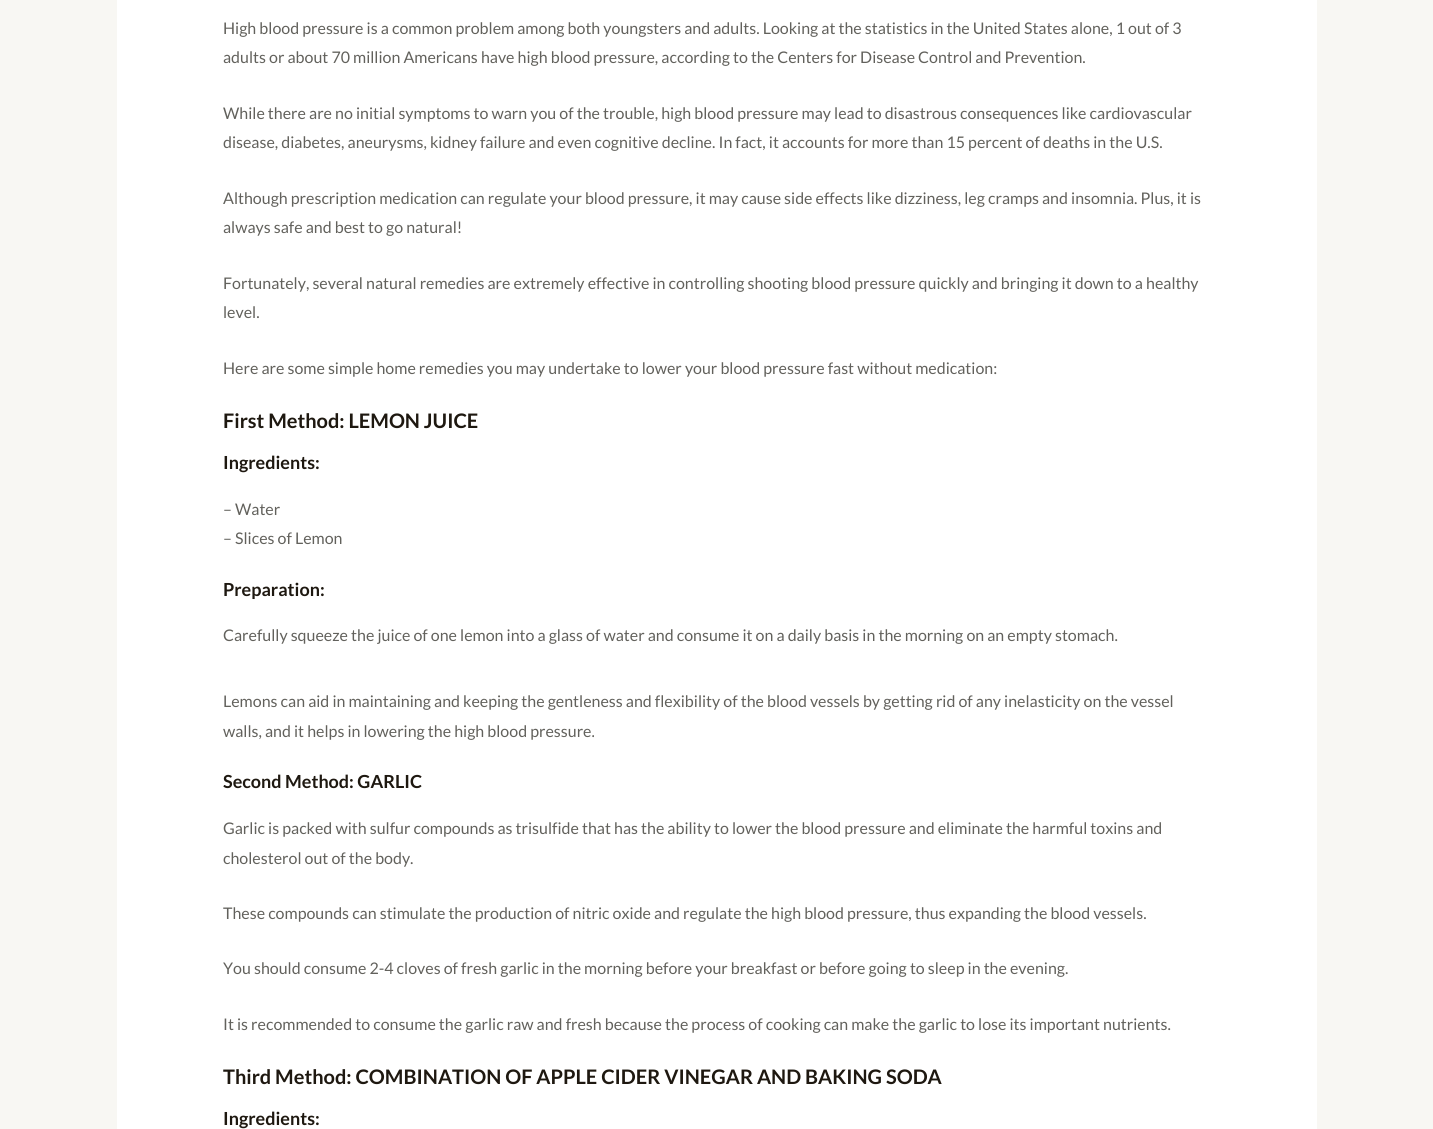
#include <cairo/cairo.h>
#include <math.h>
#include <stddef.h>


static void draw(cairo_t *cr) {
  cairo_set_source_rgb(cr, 248 / 255.0, 247 / 255.0, 243 / 255.0);
  cairo_paint(cr);
  cairo_set_source_rgb(cr, 1, 1, 1);
  cairo_rectangle(cr, 117, 0, 1200, 1129);
  cairo_fill(cr);
  cairo_select_font_face(cr, "Lato", CAIRO_FONT_SLANT_NORMAL, CAIRO_FONT_WEIGHT_NORMAL);
  cairo_set_font_size(cr, 16);
  cairo_set_source_rgb(cr, 98 / 255.0, 97 / 255.0, 92 / 255.0);
  cairo_move_to(cr, 223, 34);
  cairo_show_text(cr, "High blood pressure is a common problem among both youngsters and adults. Looking at the statistics in the United States alone, 1 out of 3");
  cairo_move_to(cr, 223, 63);
  cairo_show_text(cr, "adults or about 70 million Americans have high blood pressure, according to the Centers for Disease Control and Prevention.");
  cairo_move_to(cr, 223, 119);
  cairo_show_text(cr, "While there are no initial symptoms to warn you of the trouble, high blood pressure may lead to disastrous consequences like cardiovascular");
  cairo_move_to(cr, 223, 148);
  cairo_show_text(cr, "disease, diabetes, aneurysms, kidney failure and even cognitive decline. In fact, it accounts for more than 15 percent of deaths in the U.S.");
  cairo_move_to(cr, 223, 204);
  cairo_show_text(cr, "Although prescription medication can regulate your blood pressure, it may cause side effects like dizziness, leg cramps and insomnia. Plus, it is");
  cairo_move_to(cr, 223, 233);
  cairo_show_text(cr, "always safe and best to go natural!");
  cairo_move_to(cr, 223, 289);
  cairo_show_text(cr, "Fortunately, several natural remedies are extremely effective in controlling shooting blood pressure quickly and bringing it down to a healthy");
  cairo_move_to(cr, 223, 318);
  cairo_show_text(cr, "level.");
  cairo_move_to(cr, 223, 374);
  cairo_show_text(cr, "Here are some simple home remedies you may undertake to lower your blood pressure fast without medication:");
  cairo_select_font_face(cr, "Lato", CAIRO_FONT_SLANT_NORMAL, CAIRO_FONT_WEIGHT_BOLD);
  cairo_set_font_size(cr, 20);
  cairo_set_source_rgb(cr, 30 / 255.0, 24 / 255.0, 16 / 255.0);
  cairo_move_to(cr, 223, 428);
  cairo_show_text(cr, "First Method: LEMON JUICE");
  cairo_set_font_size(cr, 18);
  cairo_move_to(cr, 223, 469);
  cairo_show_text(cr, "Ingredients:");
  cairo_select_font_face(cr, "Lato", CAIRO_FONT_SLANT_NORMAL, CAIRO_FONT_WEIGHT_NORMAL);
  cairo_set_font_size(cr, 16);
  cairo_set_source_rgb(cr, 98 / 255.0, 97 / 255.0, 92 / 255.0);
  cairo_move_to(cr, 223, 515);
  cairo_show_text(cr, "– Water");
  cairo_move_to(cr, 223, 544);
  cairo_show_text(cr, "– Slices of Lemon");
  cairo_select_font_face(cr, "Lato", CAIRO_FONT_SLANT_NORMAL, CAIRO_FONT_WEIGHT_BOLD);
  cairo_set_font_size(cr, 18);
  cairo_set_source_rgb(cr, 30 / 255.0, 24 / 255.0, 16 / 255.0);
  cairo_move_to(cr, 223, 596);
  cairo_show_text(cr, "Preparation:");
  cairo_select_font_face(cr, "Lato", CAIRO_FONT_SLANT_NORMAL, CAIRO_FONT_WEIGHT_NORMAL);
  cairo_set_font_size(cr, 16);
  cairo_set_source_rgb(cr, 98 / 255.0, 97 / 255.0, 92 / 255.0);
  cairo_move_to(cr, 223, 641);
  cairo_show_text(cr, "Carefully squeeze the juice of one lemon into a glass of water and consume it on a daily basis in the morning on an empty stomach.");
  cairo_move_to(cr, 223, 707);
  cairo_show_text(cr, "Lemons can aid in maintaining and keeping the gentleness and flexibility of the blood vessels by getting rid of any inelasticity on the vessel");
  cairo_move_to(cr, 223, 737);
  cairo_show_text(cr, "walls, and it helps in lowering the high blood pressure.");
  cairo_select_font_face(cr, "Lato", CAIRO_FONT_SLANT_NORMAL, CAIRO_FONT_WEIGHT_BOLD);
  cairo_set_font_size(cr, 18);
  cairo_set_source_rgb(cr, 30 / 255.0, 24 / 255.0, 16 / 255.0);
  cairo_move_to(cr, 223, 788);
  cairo_show_text(cr, "Second Method: GARLIC");
  cairo_select_font_face(cr, "Lato", CAIRO_FONT_SLANT_NORMAL, CAIRO_FONT_WEIGHT_NORMAL);
  cairo_set_font_size(cr, 16);
  cairo_set_source_rgb(cr, 98 / 255.0, 97 / 255.0, 92 / 255.0);
  cairo_move_to(cr, 223, 834);
  cairo_show_text(cr, "Garlic is packed with sulfur compounds as trisulfide that has the ability to lower the blood pressure and eliminate the harmful toxins and");
  cairo_move_to(cr, 223, 864);
  cairo_show_text(cr, "cholesterol out of the body.");
  cairo_move_to(cr, 223, 919);
  cairo_show_text(cr, "These compounds can stimulate the production of nitric oxide and regulate the high blood pressure, thus expanding the blood vessels.");
  cairo_move_to(cr, 223, 974);
  cairo_show_text(cr, "You should consume 2-4 cloves of fresh garlic in the morning before your breakfast or before going to sleep in the evening.");
  cairo_move_to(cr, 223, 1030);
  cairo_show_text(cr, "It is recommended to consume the garlic raw and fresh because the process of cooking can make the garlic to lose its important nutrients.");
  cairo_select_font_face(cr, "Lato", CAIRO_FONT_SLANT_NORMAL, CAIRO_FONT_WEIGHT_BOLD);
  cairo_set_font_size(cr, 20);
  cairo_set_source_rgb(cr, 30 / 255.0, 24 / 255.0, 16 / 255.0);
  cairo_move_to(cr, 223, 1084);
  cairo_show_text(cr, "Third Method: COMBINATION OF APPLE CIDER VINEGAR AND BAKING SODA");
  cairo_set_font_size(cr, 18);
  cairo_move_to(cr, 223, 1125);
  cairo_show_text(cr, "Ingredients:");
}

int main(void) {
  cairo_surface_t *surface = cairo_image_surface_create(CAIRO_FORMAT_RGB24, 1433, 1129);
  cairo_t *cr = cairo_create(surface);
  cairo_font_options_t *options = cairo_font_options_create();
  cairo_font_options_set_hint_metrics(options, CAIRO_HINT_METRICS_OFF);
  cairo_font_options_set_hint_style(options, CAIRO_HINT_STYLE_NONE);
  cairo_set_font_options(cr, options);
  cairo_set_miter_limit(cr, 4);
  draw(cr);
  cairo_surface_write_to_png(surface, "out.png");
  cairo_font_options_destroy(options);
  cairo_destroy(cr);
  cairo_surface_destroy(surface);
  return 0;
}
